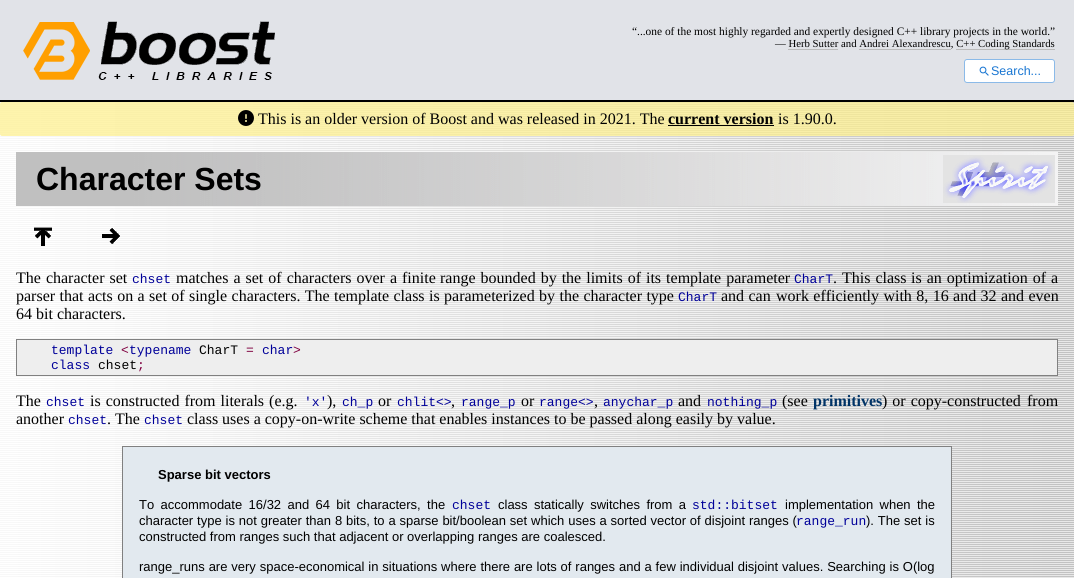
#include <cairo/cairo.h>
#include <math.h>
#include <stddef.h>


static void draw_spaced(cairo_t *cr, double x, double y, const char *s, double letter, double word) {
  cairo_move_to(cr, x, y);
  while (*s) {
    char ch[5] = {0};
    int n = 0;
    do ch[n++] = *s++; while ((*s & 0xC0) == 0x80);
    cairo_show_text(cr, ch);
    cairo_rel_move_to(cr, letter + word * (*ch == ' '), 0);
  }
}

static void rounded_rect(cairo_t *cr, double x, double y, double w, double h, double r) {
  cairo_new_sub_path(cr);
  cairo_arc(cr, x + w - r, y + h - r, r, 0, M_PI / 2);
  cairo_arc(cr, x + r, y + h - r, r, M_PI / 2, M_PI);
  cairo_arc(cr, x + r, y + r, r, M_PI, 1.5 * M_PI);
  cairo_arc(cr, x + w - r, y + r, r, 1.5 * M_PI, 2 * M_PI);
  cairo_close_path(cr);
}

static void draw_image(cairo_t *cr, const char *path, double x, double y, double w, double h) {
  cairo_surface_t *image = cairo_image_surface_create_from_png(path);
  cairo_save(cr);
  cairo_set_source_surface(cr, image, x, y);
  cairo_rectangle(cr, x, y, w, h);
  cairo_fill(cr);
  cairo_restore(cr);
  cairo_surface_destroy(image);
}

static void draw(cairo_t *cr) {
  cairo_set_source_rgb(cr, 1, 1, 1);
  cairo_paint(cr);
  draw_image(cr, "images/1.png", 0, 102, 1074, 476);
  cairo_set_source_rgb(cr, 225 / 255.0, 227 / 255.0, 232 / 255.0);
  cairo_rectangle(cr, 0, 0, 1074, 100);
  cairo_fill(cr);
  cairo_set_source_rgb(cr, 0, 0, 0);
  cairo_rectangle(cr, 0, 100, 1074, 2);
  cairo_fill(cr);
  draw_image(cr, "images/2.png", 23, 21, 252, 59);
  cairo_set_source_rgb(cr, 187 / 255.0, 187 / 255.0, 187 / 255.0);
  cairo_rectangle(cr, 956, 49, 99, 1);
  cairo_fill(cr);
  cairo_rectangle(cr, 788, 49, 50, 1);
  cairo_fill(cr);
  cairo_rectangle(cr, 859, 49, 92, 1);
  cairo_fill(cr);
  cairo_set_source_rgb(cr, 1, 1, 1);
  rounded_rect(cr, 964, 59, 91, 24, 3);
  cairo_fill(cr);
  rounded_rect(cr, 964.5, 59.5, 90, 23, 2.5);
  cairo_set_source_rgba(cr, 25 / 255.0, 118 / 255.0, 210 / 255.0, 0.5);
  cairo_set_line_width(cr, 1);
  cairo_stroke(cr);
  draw_image(cr, "images/3.png", 979, 66, 10, 10);
  cairo_set_source_rgba(cr, 254 / 255.0, 240 / 255.0, 139 / 255.0, 0.7);
  rounded_rect(cr, 0, 102, 1074, 34, 2);
  cairo_fill(cr);
  draw_image(cr, "images/4.png", 238, 110, 16, 16);
  cairo_set_source_rgb(cr, 0, 0, 0);
  cairo_rectangle(cr, 668, 125, 106, 1);
  cairo_fill(cr);
  draw_image(cr, "images/5.png", 16, 152, 1042, 54);
  draw_image(cr, "images/6.png", 943, 155, 112, 48);
  draw_image(cr, "images/7.png", 34, 227, 18, 19);
  draw_image(cr, "images/8.png", 102, 228, 18, 16);
  cairo_set_source_rgb(cr, 238 / 255.0, 238 / 255.0, 238 / 255.0);
  cairo_rectangle(cr, 16.5, 339.5, 1041, 36);
  cairo_fill_preserve(cr);
  cairo_set_source_rgb(cr, 128 / 255.0, 128 / 255.0, 128 / 255.0);
  cairo_stroke(cr);
  cairo_set_source_rgb(cr, 226 / 255.0, 233 / 255.0, 239 / 255.0);
  cairo_rectangle(cr, 122.5, 446.5, 829, 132);
  cairo_fill_preserve(cr);
  cairo_set_source_rgb(cr, 128 / 255.0, 128 / 255.0, 128 / 255.0);
  cairo_stroke(cr);
  cairo_select_font_face(cr, "Liberation Serif", CAIRO_FONT_SLANT_NORMAL, CAIRO_FONT_WEIGHT_NORMAL);
  cairo_set_font_size(cr, 11.4);
  cairo_set_source_rgb(cr, 0, 0, 0);
  cairo_move_to(cr, 632, 35);
  cairo_show_text(cr, "“...one of the most highly regarded and expertly designed C++ library projects in the world.”");
  cairo_set_font_size(cr, 10.75);
  cairo_move_to(cr, 775, 47);
  cairo_show_text(cr, "— Herb Sutter and Andrei Alexandrescu, C++");
  cairo_move_to(cr, 978, 47);
  cairo_show_text(cr, "Coding Standards");
  cairo_select_font_face(cr, "Liberation Sans", CAIRO_FONT_SLANT_NORMAL, CAIRO_FONT_WEIGHT_NORMAL);
  cairo_set_font_size(cr, 12.5);
  cairo_set_source_rgb(cr, 25 / 255.0, 118 / 255.0, 210 / 255.0);
  cairo_move_to(cr, 991, 75);
  cairo_show_text(cr, "Search...");
  cairo_select_font_face(cr, "Liberation Serif", CAIRO_FONT_SLANT_NORMAL, CAIRO_FONT_WEIGHT_NORMAL);
  cairo_set_font_size(cr, 16);
  cairo_set_source_rgb(cr, 0, 0, 0);
  cairo_move_to(cr, 258, 124);
  cairo_show_text(cr, "This is an older version of Boost and was released in 2021. The");
  cairo_select_font_face(cr, "Liberation Serif", CAIRO_FONT_SLANT_NORMAL, CAIRO_FONT_WEIGHT_BOLD);
  cairo_move_to(cr, 668, 124);
  cairo_show_text(cr, "current version");
  cairo_select_font_face(cr, "Liberation Serif", CAIRO_FONT_SLANT_NORMAL, CAIRO_FONT_WEIGHT_NORMAL);
  cairo_move_to(cr, 778, 124);
  cairo_show_text(cr, "is 1.90.0.");
  cairo_select_font_face(cr, "Liberation Sans", CAIRO_FONT_SLANT_NORMAL, CAIRO_FONT_WEIGHT_BOLD);
  cairo_set_font_size(cr, 32);
  cairo_move_to(cr, 36, 190);
  cairo_show_text(cr, "Character Sets");
  cairo_select_font_face(cr, "Liberation Serif", CAIRO_FONT_SLANT_NORMAL, CAIRO_FONT_WEIGHT_NORMAL);
  cairo_set_font_size(cr, 16);
  draw_spaced(cr, 16, 283, "The character set", 0, 1);
  cairo_select_font_face(cr, "Liberation Mono", CAIRO_FONT_SLANT_NORMAL, CAIRO_FONT_WEIGHT_NORMAL);
  cairo_set_font_size(cr, 13);
  cairo_set_source_rgb(cr, 0, 0, 153 / 255.0);
  cairo_move_to(cr, 132, 283);
  cairo_show_text(cr, "chset");
  cairo_select_font_face(cr, "Liberation Serif", CAIRO_FONT_SLANT_NORMAL, CAIRO_FONT_WEIGHT_NORMAL);
  cairo_set_font_size(cr, 16);
  cairo_set_source_rgb(cr, 0, 0, 0);
  draw_spaced(cr, 176, 283, "matches a set of characters over a finite", 0, 1);
  draw_spaced(cr, 440, 283, "range bounded by the limits of its template parameter", 0, 1);
  cairo_select_font_face(cr, "Liberation Mono", CAIRO_FONT_SLANT_NORMAL, CAIRO_FONT_WEIGHT_NORMAL);
  cairo_set_font_size(cr, 13);
  cairo_set_source_rgb(cr, 0, 0, 153 / 255.0);
  cairo_move_to(cr, 794, 283);
  cairo_show_text(cr, "CharT");
  cairo_select_font_face(cr, "Liberation Serif", CAIRO_FONT_SLANT_NORMAL, CAIRO_FONT_WEIGHT_NORMAL);
  cairo_set_font_size(cr, 16);
  cairo_set_source_rgb(cr, 0, 0, 0);
  draw_spaced(cr, 833, 283, ". This class", 0, 1);
  draw_spaced(cr, 911, 283, "is an optimization of a", 0, 1);
  draw_spaced(cr, 16, 301, "parser that acts on a set of single characters. The", 0, 0.4);
  draw_spaced(cr, 334, 301, "template class is parameterized by the character type", 0, 0.4);
  cairo_select_font_face(cr, "Liberation Mono", CAIRO_FONT_SLANT_NORMAL, CAIRO_FONT_WEIGHT_NORMAL);
  cairo_set_font_size(cr, 13);
  cairo_set_source_rgb(cr, 0, 0, 153 / 255.0);
  cairo_move_to(cr, 678, 301);
  cairo_show_text(cr, "CharT");
  cairo_select_font_face(cr, "Liberation Serif", CAIRO_FONT_SLANT_NORMAL, CAIRO_FONT_WEIGHT_NORMAL);
  cairo_set_font_size(cr, 16);
  cairo_set_source_rgb(cr, 0, 0, 0);
  draw_spaced(cr, 721, 301, "and can", 0, 0.4);
  draw_spaced(cr, 776, 301, "work efficiently with 8, 16 and 32 and even", 0, 0.4);
  cairo_move_to(cr, 16, 319);
  cairo_show_text(cr, "64 bit characters.");
  cairo_select_font_face(cr, "Liberation Mono", CAIRO_FONT_SLANT_NORMAL, CAIRO_FONT_WEIGHT_NORMAL);
  cairo_set_font_size(cr, 13);
  cairo_set_source_rgb(cr, 0, 0, 153 / 255.0);
  cairo_move_to(cr, 51, 354);
  cairo_show_text(cr, "template");
  cairo_set_source_rgb(cr, 128 / 255.0, 0, 64 / 255.0);
  cairo_move_to(cr, 121, 354);
  cairo_show_text(cr, "<");
  cairo_set_source_rgb(cr, 0, 0, 153 / 255.0);
  cairo_move_to(cr, 129, 354);
  cairo_show_text(cr, "typename");
  cairo_set_source_rgb(cr, 0, 0, 0);
  cairo_move_to(cr, 199, 354);
  cairo_show_text(cr, "CharT");
  cairo_set_source_rgb(cr, 128 / 255.0, 0, 64 / 255.0);
  cairo_move_to(cr, 246, 354);
  cairo_show_text(cr, "=");
  cairo_set_source_rgb(cr, 0, 0, 153 / 255.0);
  cairo_move_to(cr, 262, 354);
  cairo_show_text(cr, "char");
  cairo_set_source_rgb(cr, 128 / 255.0, 0, 64 / 255.0);
  cairo_move_to(cr, 293, 354);
  cairo_show_text(cr, ">");
  cairo_set_source_rgb(cr, 0, 0, 153 / 255.0);
  cairo_move_to(cr, 51, 369);
  cairo_show_text(cr, "class");
  cairo_set_source_rgb(cr, 0, 0, 0);
  cairo_move_to(cr, 98, 369);
  cairo_show_text(cr, "chset");
  cairo_set_source_rgb(cr, 128 / 255.0, 0, 64 / 255.0);
  cairo_move_to(cr, 137, 369);
  cairo_show_text(cr, ";");
  cairo_select_font_face(cr, "Liberation Serif", CAIRO_FONT_SLANT_NORMAL, CAIRO_FONT_WEIGHT_NORMAL);
  cairo_set_font_size(cr, 16);
  cairo_set_source_rgb(cr, 0, 0, 0);
  cairo_move_to(cr, 16, 406);
  cairo_show_text(cr, "The");
  cairo_select_font_face(cr, "Liberation Mono", CAIRO_FONT_SLANT_NORMAL, CAIRO_FONT_WEIGHT_NORMAL);
  cairo_set_font_size(cr, 13);
  cairo_set_source_rgb(cr, 0, 0, 153 / 255.0);
  cairo_move_to(cr, 46, 406);
  cairo_show_text(cr, "chset");
  cairo_select_font_face(cr, "Liberation Serif", CAIRO_FONT_SLANT_NORMAL, CAIRO_FONT_WEIGHT_NORMAL);
  cairo_set_font_size(cr, 16);
  cairo_set_source_rgb(cr, 0, 0, 0);
  draw_spaced(cr, 90, 406, "is constructed from literals (e.g.", 0, 1);
  cairo_select_font_face(cr, "Liberation Mono", CAIRO_FONT_SLANT_NORMAL, CAIRO_FONT_WEIGHT_NORMAL);
  cairo_set_font_size(cr, 13);
  cairo_set_source_rgb(cr, 0, 0, 153 / 255.0);
  cairo_move_to(cr, 304, 406);
  cairo_show_text(cr, "'x'");
  cairo_select_font_face(cr, "Liberation Serif", CAIRO_FONT_SLANT_NORMAL, CAIRO_FONT_WEIGHT_NORMAL);
  cairo_set_font_size(cr, 16);
  cairo_set_source_rgb(cr, 0, 0, 0);
  cairo_move_to(cr, 327, 406);
  cairo_show_text(cr, "),");
  cairo_select_font_face(cr, "Liberation Mono", CAIRO_FONT_SLANT_NORMAL, CAIRO_FONT_WEIGHT_NORMAL);
  cairo_set_font_size(cr, 13);
  cairo_set_source_rgb(cr, 0, 0, 153 / 255.0);
  cairo_move_to(cr, 342, 406);
  cairo_show_text(cr, "ch_p");
  cairo_select_font_face(cr, "Liberation Serif", CAIRO_FONT_SLANT_NORMAL, CAIRO_FONT_WEIGHT_NORMAL);
  cairo_set_font_size(cr, 16);
  cairo_set_source_rgb(cr, 0, 0, 0);
  cairo_move_to(cr, 378, 406);
  cairo_show_text(cr, "or");
  cairo_select_font_face(cr, "Liberation Mono", CAIRO_FONT_SLANT_NORMAL, CAIRO_FONT_WEIGHT_NORMAL);
  cairo_set_font_size(cr, 13);
  cairo_set_source_rgb(cr, 0, 0, 153 / 255.0);
  cairo_move_to(cr, 397, 406);
  cairo_show_text(cr, "chlit<>");
  cairo_select_font_face(cr, "Liberation Serif", CAIRO_FONT_SLANT_NORMAL, CAIRO_FONT_WEIGHT_NORMAL);
  cairo_set_font_size(cr, 16);
  cairo_set_source_rgb(cr, 0, 0, 0);
  cairo_move_to(cr, 451, 406);
  cairo_show_text(cr, ",");
  cairo_select_font_face(cr, "Liberation Mono", CAIRO_FONT_SLANT_NORMAL, CAIRO_FONT_WEIGHT_NORMAL);
  cairo_set_font_size(cr, 13);
  cairo_set_source_rgb(cr, 0, 0, 153 / 255.0);
  cairo_move_to(cr, 461, 406);
  cairo_show_text(cr, "range_p");
  cairo_select_font_face(cr, "Liberation Serif", CAIRO_FONT_SLANT_NORMAL, CAIRO_FONT_WEIGHT_NORMAL);
  cairo_set_font_size(cr, 16);
  cairo_set_source_rgb(cr, 0, 0, 0);
  cairo_move_to(cr, 521, 406);
  cairo_show_text(cr, "or");
  cairo_select_font_face(cr, "Liberation Mono", CAIRO_FONT_SLANT_NORMAL, CAIRO_FONT_WEIGHT_NORMAL);
  cairo_set_font_size(cr, 13);
  cairo_set_source_rgb(cr, 0, 0, 153 / 255.0);
  cairo_move_to(cr, 539, 406);
  cairo_show_text(cr, "range<>");
  cairo_select_font_face(cr, "Liberation Serif", CAIRO_FONT_SLANT_NORMAL, CAIRO_FONT_WEIGHT_NORMAL);
  cairo_set_font_size(cr, 16);
  cairo_set_source_rgb(cr, 0, 0, 0);
  cairo_move_to(cr, 594, 406);
  cairo_show_text(cr, ",");
  cairo_select_font_face(cr, "Liberation Mono", CAIRO_FONT_SLANT_NORMAL, CAIRO_FONT_WEIGHT_NORMAL);
  cairo_set_font_size(cr, 13);
  cairo_set_source_rgb(cr, 0, 0, 153 / 255.0);
  cairo_move_to(cr, 603, 406);
  cairo_show_text(cr, "anychar_p");
  cairo_select_font_face(cr, "Liberation Serif", CAIRO_FONT_SLANT_NORMAL, CAIRO_FONT_WEIGHT_NORMAL);
  cairo_set_font_size(cr, 16);
  cairo_set_source_rgb(cr, 0, 0, 0);
  cairo_move_to(cr, 678, 406);
  cairo_show_text(cr, "and");
  cairo_select_font_face(cr, "Liberation Mono", CAIRO_FONT_SLANT_NORMAL, CAIRO_FONT_WEIGHT_NORMAL);
  cairo_set_font_size(cr, 13);
  cairo_set_source_rgb(cr, 0, 0, 153 / 255.0);
  cairo_move_to(cr, 707, 406);
  cairo_show_text(cr, "nothing_p");
  cairo_select_font_face(cr, "Liberation Serif", CAIRO_FONT_SLANT_NORMAL, CAIRO_FONT_WEIGHT_NORMAL);
  cairo_set_font_size(cr, 16);
  cairo_set_source_rgb(cr, 0, 0, 0);
  cairo_move_to(cr, 782, 406);
  cairo_show_text(cr, "(see");
  cairo_select_font_face(cr, "Liberation Serif", CAIRO_FONT_SLANT_NORMAL, CAIRO_FONT_WEIGHT_BOLD);
  cairo_set_source_rgb(cr, 0, 51 / 255.0, 102 / 255.0);
  cairo_move_to(cr, 813, 406);
  cairo_show_text(cr, "primitives");
  cairo_select_font_face(cr, "Liberation Serif", CAIRO_FONT_SLANT_NORMAL, CAIRO_FONT_WEIGHT_NORMAL);
  cairo_set_source_rgb(cr, 0, 0, 0);
  draw_spaced(cr, 882, 406, ") or copy-constructed", 0, 1);
  cairo_move_to(cr, 1027, 406);
  cairo_show_text(cr, "from");
  cairo_move_to(cr, 16, 424);
  cairo_show_text(cr, "another");
  cairo_select_font_face(cr, "Liberation Mono", CAIRO_FONT_SLANT_NORMAL, CAIRO_FONT_WEIGHT_NORMAL);
  cairo_set_font_size(cr, 13);
  cairo_set_source_rgb(cr, 0, 0, 153 / 255.0);
  cairo_move_to(cr, 68, 424);
  cairo_show_text(cr, "chset");
  cairo_select_font_face(cr, "Liberation Serif", CAIRO_FONT_SLANT_NORMAL, CAIRO_FONT_WEIGHT_NORMAL);
  cairo_set_font_size(cr, 16);
  cairo_set_source_rgb(cr, 0, 0, 0);
  cairo_move_to(cr, 107, 424);
  cairo_show_text(cr, ". The");
  cairo_select_font_face(cr, "Liberation Mono", CAIRO_FONT_SLANT_NORMAL, CAIRO_FONT_WEIGHT_NORMAL);
  cairo_set_font_size(cr, 13);
  cairo_set_source_rgb(cr, 0, 0, 153 / 255.0);
  cairo_move_to(cr, 144, 424);
  cairo_show_text(cr, "chset");
  cairo_select_font_face(cr, "Liberation Serif", CAIRO_FONT_SLANT_NORMAL, CAIRO_FONT_WEIGHT_NORMAL);
  cairo_set_font_size(cr, 16);
  cairo_set_source_rgb(cr, 0, 0, 0);
  cairo_move_to(cr, 187, 424);
  cairo_show_text(cr, "class uses a copy-on-write scheme that enables instances to be passed along easily by value.");
  cairo_select_font_face(cr, "Liberation Sans", CAIRO_FONT_SLANT_NORMAL, CAIRO_FONT_WEIGHT_BOLD);
  cairo_set_font_size(cr, 13);
  cairo_move_to(cr, 158, 479);
  cairo_show_text(cr, "Sparse bit vectors");
  cairo_select_font_face(cr, "Liberation Sans", CAIRO_FONT_SLANT_NORMAL, CAIRO_FONT_WEIGHT_NORMAL);
  draw_spaced(cr, 139, 509, "To accommodate 16/32 and 64 bit characters, the", 0, 2.75);
  cairo_select_font_face(cr, "Liberation Mono", CAIRO_FONT_SLANT_NORMAL, CAIRO_FONT_WEIGHT_NORMAL);
  cairo_set_source_rgb(cr, 0, 0, 153 / 255.0);
  cairo_move_to(cr, 452, 509);
  cairo_show_text(cr, "chset");
  cairo_select_font_face(cr, "Liberation Sans", CAIRO_FONT_SLANT_NORMAL, CAIRO_FONT_WEIGHT_NORMAL);
  cairo_set_source_rgb(cr, 0, 0, 0);
  cairo_move_to(cr, 498, 509);
  cairo_show_text(cr, "class");
  draw_spaced(cr, 534, 509, "statically switches from a", 0, 2.75);
  cairo_select_font_face(cr, "Liberation Mono", CAIRO_FONT_SLANT_NORMAL, CAIRO_FONT_WEIGHT_NORMAL);
  cairo_set_source_rgb(cr, 0, 0, 153 / 255.0);
  cairo_move_to(cr, 692, 509);
  cairo_show_text(cr, "std::bitset");
  cairo_select_font_face(cr, "Liberation Sans", CAIRO_FONT_SLANT_NORMAL, CAIRO_FONT_WEIGHT_NORMAL);
  cairo_set_source_rgb(cr, 0, 0, 0);
  draw_spaced(cr, 785, 509, "implementation when the", 0, 2.75);
  draw_spaced(cr, 139, 525, "character type is not greater than 8 bits, to a sparse bit/boolean set which uses a sorted vector of disjoint ranges (", 0, 0.25);
  cairo_select_font_face(cr, "Liberation Mono", CAIRO_FONT_SLANT_NORMAL, CAIRO_FONT_WEIGHT_NORMAL);
  cairo_set_source_rgb(cr, 0, 0, 153 / 255.0);
  cairo_move_to(cr, 796, 525);
  cairo_show_text(cr, "range_run");
  cairo_select_font_face(cr, "Liberation Sans", CAIRO_FONT_SLANT_NORMAL, CAIRO_FONT_WEIGHT_NORMAL);
  cairo_set_source_rgb(cr, 0, 0, 0);
  draw_spaced(cr, 866, 525, "). The set is", 0, 0.25);
  cairo_move_to(cr, 139, 541);
  cairo_show_text(cr, "constructed from ranges such that adjacent or overlapping ranges are coalesced.");
  draw_spaced(cr, 139, 571, "range_runs are very space-economical in situations where there are lots of ranges and a few individual disjoint values. Searching is O(log", 0, 0.25);
}

int main(void) {
  cairo_surface_t *surface = cairo_image_surface_create(CAIRO_FORMAT_RGB24, 1074, 578);
  cairo_t *cr = cairo_create(surface);
  cairo_font_options_t *options = cairo_font_options_create();
  cairo_font_options_set_hint_metrics(options, CAIRO_HINT_METRICS_OFF);
  cairo_font_options_set_hint_style(options, CAIRO_HINT_STYLE_NONE);
  cairo_set_font_options(cr, options);
  cairo_set_miter_limit(cr, 4);
  draw(cr);
  cairo_surface_write_to_png(surface, "out.png");
  cairo_font_options_destroy(options);
  cairo_destroy(cr);
  cairo_surface_destroy(surface);
  return 0;
}
